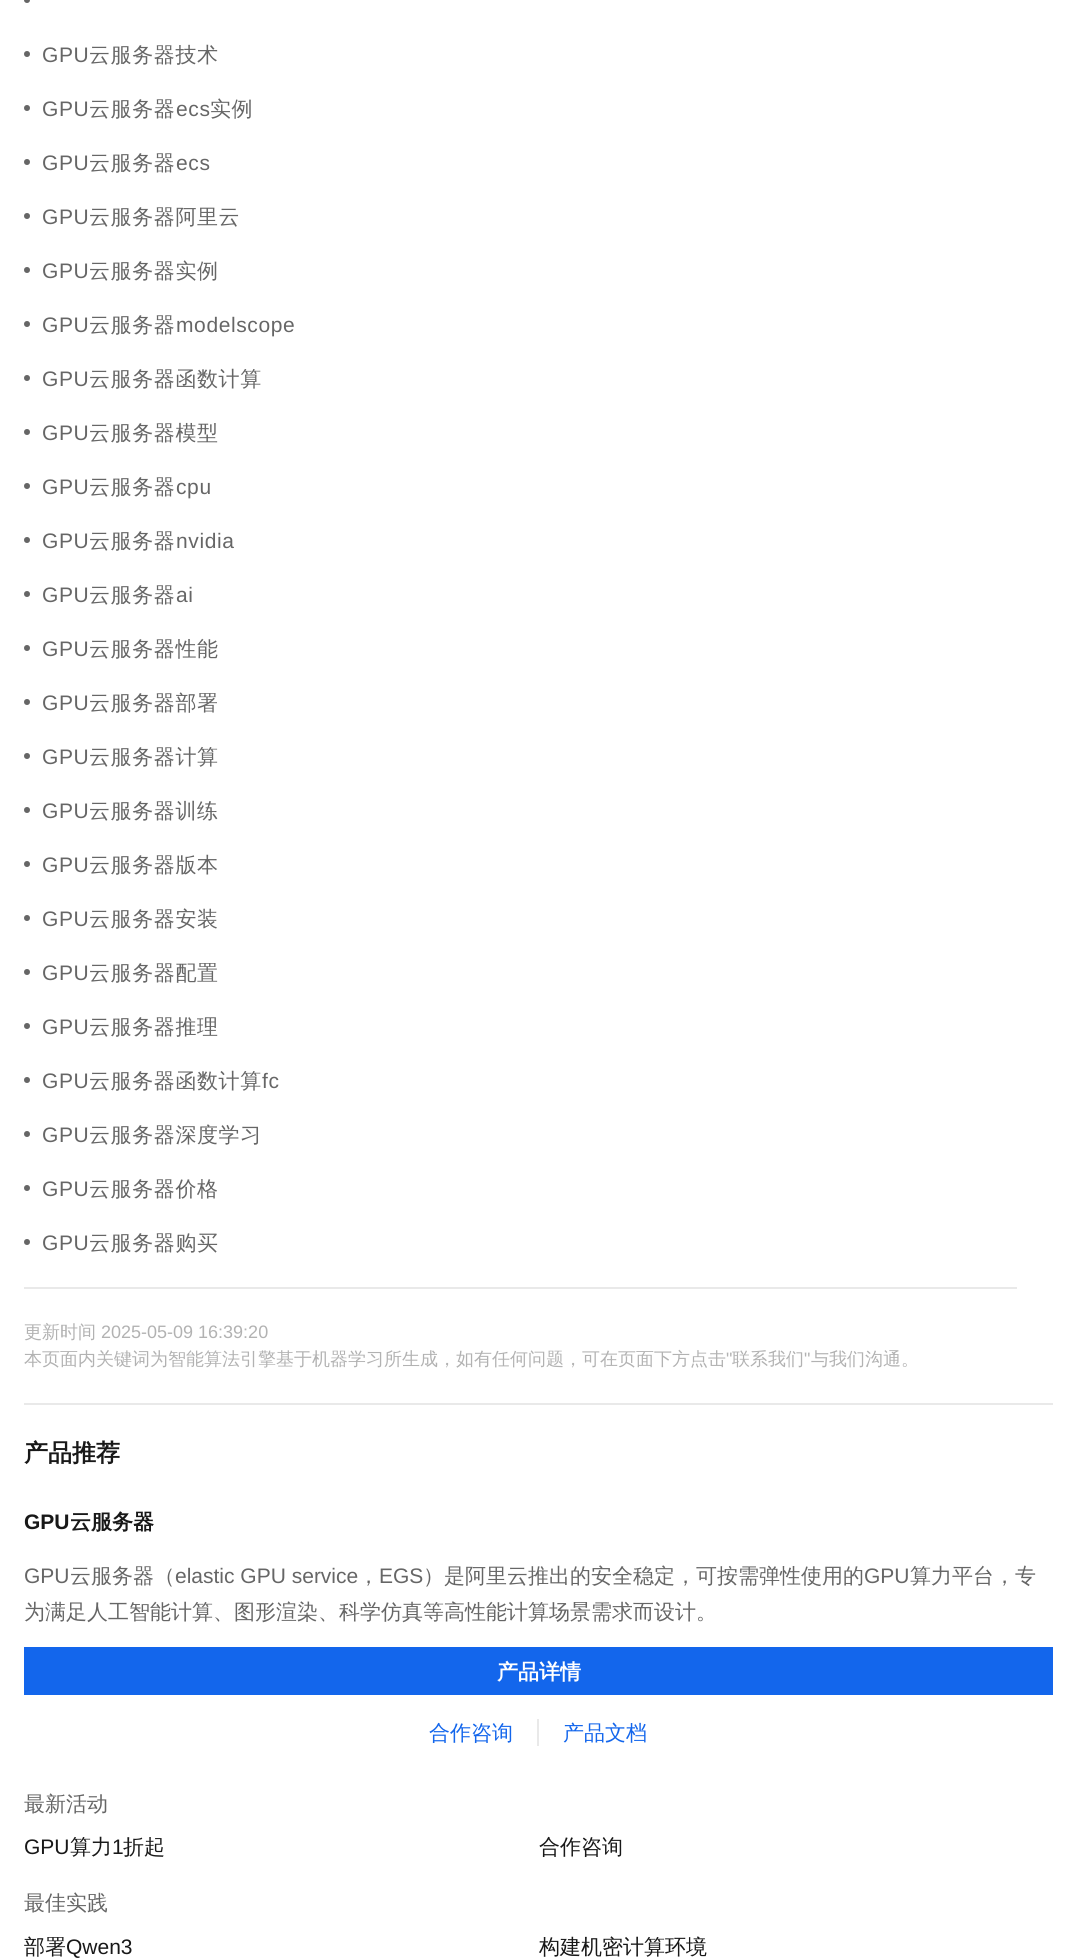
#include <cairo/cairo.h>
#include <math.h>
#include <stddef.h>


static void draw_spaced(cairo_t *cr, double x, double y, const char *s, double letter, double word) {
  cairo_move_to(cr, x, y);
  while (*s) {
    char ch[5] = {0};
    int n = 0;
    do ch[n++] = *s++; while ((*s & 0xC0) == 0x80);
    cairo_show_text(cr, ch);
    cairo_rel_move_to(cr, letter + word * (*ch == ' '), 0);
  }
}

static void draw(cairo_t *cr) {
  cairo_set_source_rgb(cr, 1, 1, 1);
  cairo_paint(cr);
  cairo_set_source_rgb(cr, 102 / 255.0, 102 / 255.0, 102 / 255.0);
  cairo_arc(cr, 27, 0, 3, 0, 2 * M_PI);
  cairo_fill(cr);
  cairo_arc(cr, 27, 54, 3, 0, 2 * M_PI);
  cairo_fill(cr);
  cairo_arc(cr, 27, 108, 3, 0, 2 * M_PI);
  cairo_fill(cr);
  cairo_arc(cr, 27, 162, 3, 0, 2 * M_PI);
  cairo_fill(cr);
  cairo_arc(cr, 27, 216, 3, 0, 2 * M_PI);
  cairo_fill(cr);
  cairo_arc(cr, 27, 270, 3, 0, 2 * M_PI);
  cairo_fill(cr);
  cairo_arc(cr, 27, 324, 3, 0, 2 * M_PI);
  cairo_fill(cr);
  cairo_arc(cr, 27, 378, 3, 0, 2 * M_PI);
  cairo_fill(cr);
  cairo_arc(cr, 27, 432, 3, 0, 2 * M_PI);
  cairo_fill(cr);
  cairo_arc(cr, 27, 486, 3, 0, 2 * M_PI);
  cairo_fill(cr);
  cairo_arc(cr, 27, 540, 3, 0, 2 * M_PI);
  cairo_fill(cr);
  cairo_arc(cr, 27, 594, 3, 0, 2 * M_PI);
  cairo_fill(cr);
  cairo_arc(cr, 27, 648, 3, 0, 2 * M_PI);
  cairo_fill(cr);
  cairo_arc(cr, 27, 702, 3, 0, 2 * M_PI);
  cairo_fill(cr);
  cairo_arc(cr, 27, 756, 3, 0, 2 * M_PI);
  cairo_fill(cr);
  cairo_arc(cr, 27, 810, 3, 0, 2 * M_PI);
  cairo_fill(cr);
  cairo_arc(cr, 27, 864, 3, 0, 2 * M_PI);
  cairo_fill(cr);
  cairo_arc(cr, 27, 918, 3, 0, 2 * M_PI);
  cairo_fill(cr);
  cairo_arc(cr, 27, 972, 3, 0, 2 * M_PI);
  cairo_fill(cr);
  cairo_arc(cr, 27, 1026, 3, 0, 2 * M_PI);
  cairo_fill(cr);
  cairo_arc(cr, 27, 1080, 3, 0, 2 * M_PI);
  cairo_fill(cr);
  cairo_arc(cr, 27, 1134, 3, 0, 2 * M_PI);
  cairo_fill(cr);
  cairo_arc(cr, 27, 1188, 3, 0, 2 * M_PI);
  cairo_fill(cr);
  cairo_arc(cr, 27, 1242, 3, 0, 2 * M_PI);
  cairo_fill(cr);
  cairo_set_source_rgb(cr, 233 / 255.0, 233 / 255.0, 233 / 255.0);
  cairo_rectangle(cr, 24, 1287, 993, 2);
  cairo_fill(cr);
  cairo_rectangle(cr, 24, 1403, 1029, 2);
  cairo_fill(cr);
  cairo_set_source_rgb(cr, 19 / 255.0, 102 / 255.0, 236 / 255.0);
  cairo_rectangle(cr, 24, 1647, 1029, 48);
  cairo_fill(cr);
  cairo_set_source_rgb(cr, 233 / 255.0, 233 / 255.0, 233 / 255.0);
  cairo_rectangle(cr, 537, 1719, 2, 27);
  cairo_fill(cr);
  cairo_select_font_face(cr, "Liberation Sans", CAIRO_FONT_SLANT_NORMAL, CAIRO_FONT_WEIGHT_NORMAL);
  cairo_set_font_size(cr, 21);
  cairo_set_source_rgb(cr, 102 / 255.0, 102 / 255.0, 102 / 255.0);
  draw_spaced(cr, 42, 62, "GPU", 0.6, 0);
  cairo_select_font_face(cr, "WenQuanYi Zen Hei Medium", CAIRO_FONT_SLANT_NORMAL, CAIRO_FONT_WEIGHT_NORMAL);
  draw_spaced(cr, 89, 62, "云服务器技术", 0.6, 0);
  cairo_select_font_face(cr, "Liberation Sans", CAIRO_FONT_SLANT_NORMAL, CAIRO_FONT_WEIGHT_NORMAL);
  draw_spaced(cr, 42, 116, "GPU", 0.6, 0);
  cairo_select_font_face(cr, "WenQuanYi Zen Hei Medium", CAIRO_FONT_SLANT_NORMAL, CAIRO_FONT_WEIGHT_NORMAL);
  draw_spaced(cr, 89, 116, "云服务器", 0.6, 0);
  cairo_select_font_face(cr, "Liberation Sans", CAIRO_FONT_SLANT_NORMAL, CAIRO_FONT_WEIGHT_NORMAL);
  draw_spaced(cr, 176, 116, "ecs", 0.6, 0);
  cairo_select_font_face(cr, "WenQuanYi Zen Hei Medium", CAIRO_FONT_SLANT_NORMAL, CAIRO_FONT_WEIGHT_NORMAL);
  draw_spaced(cr, 210, 116, "实例", 0.6, 0);
  cairo_select_font_face(cr, "Liberation Sans", CAIRO_FONT_SLANT_NORMAL, CAIRO_FONT_WEIGHT_NORMAL);
  draw_spaced(cr, 42, 170, "GPU", 0.6, 0);
  cairo_select_font_face(cr, "WenQuanYi Zen Hei Medium", CAIRO_FONT_SLANT_NORMAL, CAIRO_FONT_WEIGHT_NORMAL);
  draw_spaced(cr, 89, 170, "云服务器", 0.6, 0);
  cairo_select_font_face(cr, "Liberation Sans", CAIRO_FONT_SLANT_NORMAL, CAIRO_FONT_WEIGHT_NORMAL);
  draw_spaced(cr, 176, 170, "ecs", 0.6, 0);
  draw_spaced(cr, 42, 224, "GPU", 0.6, 0);
  cairo_select_font_face(cr, "WenQuanYi Zen Hei Medium", CAIRO_FONT_SLANT_NORMAL, CAIRO_FONT_WEIGHT_NORMAL);
  draw_spaced(cr, 89, 224, "云服务器阿里云", 0.6, 0);
  cairo_select_font_face(cr, "Liberation Sans", CAIRO_FONT_SLANT_NORMAL, CAIRO_FONT_WEIGHT_NORMAL);
  draw_spaced(cr, 42, 278, "GPU", 0.6, 0);
  cairo_select_font_face(cr, "WenQuanYi Zen Hei Medium", CAIRO_FONT_SLANT_NORMAL, CAIRO_FONT_WEIGHT_NORMAL);
  draw_spaced(cr, 89, 278, "云服务器实例", 0.6, 0);
  cairo_select_font_face(cr, "Liberation Sans", CAIRO_FONT_SLANT_NORMAL, CAIRO_FONT_WEIGHT_NORMAL);
  draw_spaced(cr, 42, 332, "GPU", 0.6, 0);
  cairo_select_font_face(cr, "WenQuanYi Zen Hei Medium", CAIRO_FONT_SLANT_NORMAL, CAIRO_FONT_WEIGHT_NORMAL);
  draw_spaced(cr, 89, 332, "云服务器", 0.6, 0);
  cairo_select_font_face(cr, "Liberation Sans", CAIRO_FONT_SLANT_NORMAL, CAIRO_FONT_WEIGHT_NORMAL);
  draw_spaced(cr, 176, 332, "modelscope", 0.6, 0);
  draw_spaced(cr, 42, 386, "GPU", 0.6, 0);
  cairo_select_font_face(cr, "WenQuanYi Zen Hei Medium", CAIRO_FONT_SLANT_NORMAL, CAIRO_FONT_WEIGHT_NORMAL);
  draw_spaced(cr, 89, 386, "云服务器函数计算", 0.6, 0);
  cairo_select_font_face(cr, "Liberation Sans", CAIRO_FONT_SLANT_NORMAL, CAIRO_FONT_WEIGHT_NORMAL);
  draw_spaced(cr, 42, 440, "GPU", 0.6, 0);
  cairo_select_font_face(cr, "WenQuanYi Zen Hei Medium", CAIRO_FONT_SLANT_NORMAL, CAIRO_FONT_WEIGHT_NORMAL);
  draw_spaced(cr, 89, 440, "云服务器模型", 0.6, 0);
  cairo_select_font_face(cr, "Liberation Sans", CAIRO_FONT_SLANT_NORMAL, CAIRO_FONT_WEIGHT_NORMAL);
  draw_spaced(cr, 42, 494, "GPU", 0.6, 0);
  cairo_select_font_face(cr, "WenQuanYi Zen Hei Medium", CAIRO_FONT_SLANT_NORMAL, CAIRO_FONT_WEIGHT_NORMAL);
  draw_spaced(cr, 89, 494, "云服务器", 0.6, 0);
  cairo_select_font_face(cr, "Liberation Sans", CAIRO_FONT_SLANT_NORMAL, CAIRO_FONT_WEIGHT_NORMAL);
  draw_spaced(cr, 176, 494, "cpu", 0.6, 0);
  draw_spaced(cr, 42, 548, "GPU", 0.6, 0);
  cairo_select_font_face(cr, "WenQuanYi Zen Hei Medium", CAIRO_FONT_SLANT_NORMAL, CAIRO_FONT_WEIGHT_NORMAL);
  draw_spaced(cr, 89, 548, "云服务器", 0.6, 0);
  cairo_select_font_face(cr, "Liberation Sans", CAIRO_FONT_SLANT_NORMAL, CAIRO_FONT_WEIGHT_NORMAL);
  draw_spaced(cr, 176, 548, "nvidia", 0.6, 0);
  draw_spaced(cr, 42, 602, "GPU", 0.6, 0);
  cairo_select_font_face(cr, "WenQuanYi Zen Hei Medium", CAIRO_FONT_SLANT_NORMAL, CAIRO_FONT_WEIGHT_NORMAL);
  draw_spaced(cr, 89, 602, "云服务器", 0.6, 0);
  cairo_select_font_face(cr, "Liberation Sans", CAIRO_FONT_SLANT_NORMAL, CAIRO_FONT_WEIGHT_NORMAL);
  draw_spaced(cr, 176, 602, "ai", 0.6, 0);
  draw_spaced(cr, 42, 656, "GPU", 0.6, 0);
  cairo_select_font_face(cr, "WenQuanYi Zen Hei Medium", CAIRO_FONT_SLANT_NORMAL, CAIRO_FONT_WEIGHT_NORMAL);
  draw_spaced(cr, 89, 656, "云服务器性能", 0.6, 0);
  cairo_select_font_face(cr, "Liberation Sans", CAIRO_FONT_SLANT_NORMAL, CAIRO_FONT_WEIGHT_NORMAL);
  draw_spaced(cr, 42, 710, "GPU", 0.6, 0);
  cairo_select_font_face(cr, "WenQuanYi Zen Hei Medium", CAIRO_FONT_SLANT_NORMAL, CAIRO_FONT_WEIGHT_NORMAL);
  draw_spaced(cr, 89, 710, "云服务器部署", 0.6, 0);
  cairo_select_font_face(cr, "Liberation Sans", CAIRO_FONT_SLANT_NORMAL, CAIRO_FONT_WEIGHT_NORMAL);
  draw_spaced(cr, 42, 764, "GPU", 0.6, 0);
  cairo_select_font_face(cr, "WenQuanYi Zen Hei Medium", CAIRO_FONT_SLANT_NORMAL, CAIRO_FONT_WEIGHT_NORMAL);
  draw_spaced(cr, 89, 764, "云服务器计算", 0.6, 0);
  cairo_select_font_face(cr, "Liberation Sans", CAIRO_FONT_SLANT_NORMAL, CAIRO_FONT_WEIGHT_NORMAL);
  draw_spaced(cr, 42, 818, "GPU", 0.6, 0);
  cairo_select_font_face(cr, "WenQuanYi Zen Hei Medium", CAIRO_FONT_SLANT_NORMAL, CAIRO_FONT_WEIGHT_NORMAL);
  draw_spaced(cr, 89, 818, "云服务器训练", 0.6, 0);
  cairo_select_font_face(cr, "Liberation Sans", CAIRO_FONT_SLANT_NORMAL, CAIRO_FONT_WEIGHT_NORMAL);
  draw_spaced(cr, 42, 872, "GPU", 0.6, 0);
  cairo_select_font_face(cr, "WenQuanYi Zen Hei Medium", CAIRO_FONT_SLANT_NORMAL, CAIRO_FONT_WEIGHT_NORMAL);
  draw_spaced(cr, 89, 872, "云服务器版本", 0.6, 0);
  cairo_select_font_face(cr, "Liberation Sans", CAIRO_FONT_SLANT_NORMAL, CAIRO_FONT_WEIGHT_NORMAL);
  draw_spaced(cr, 42, 926, "GPU", 0.6, 0);
  cairo_select_font_face(cr, "WenQuanYi Zen Hei Medium", CAIRO_FONT_SLANT_NORMAL, CAIRO_FONT_WEIGHT_NORMAL);
  draw_spaced(cr, 89, 926, "云服务器安装", 0.6, 0);
  cairo_select_font_face(cr, "Liberation Sans", CAIRO_FONT_SLANT_NORMAL, CAIRO_FONT_WEIGHT_NORMAL);
  draw_spaced(cr, 42, 980, "GPU", 0.6, 0);
  cairo_select_font_face(cr, "WenQuanYi Zen Hei Medium", CAIRO_FONT_SLANT_NORMAL, CAIRO_FONT_WEIGHT_NORMAL);
  draw_spaced(cr, 89, 980, "云服务器配置", 0.6, 0);
  cairo_select_font_face(cr, "Liberation Sans", CAIRO_FONT_SLANT_NORMAL, CAIRO_FONT_WEIGHT_NORMAL);
  draw_spaced(cr, 42, 1034, "GPU", 0.6, 0);
  cairo_select_font_face(cr, "WenQuanYi Zen Hei Medium", CAIRO_FONT_SLANT_NORMAL, CAIRO_FONT_WEIGHT_NORMAL);
  draw_spaced(cr, 89, 1034, "云服务器推理", 0.6, 0);
  cairo_select_font_face(cr, "Liberation Sans", CAIRO_FONT_SLANT_NORMAL, CAIRO_FONT_WEIGHT_NORMAL);
  draw_spaced(cr, 42, 1088, "GPU", 0.6, 0);
  cairo_select_font_face(cr, "WenQuanYi Zen Hei Medium", CAIRO_FONT_SLANT_NORMAL, CAIRO_FONT_WEIGHT_NORMAL);
  draw_spaced(cr, 89, 1088, "云服务器函数计算", 0.6, 0);
  cairo_select_font_face(cr, "Liberation Sans", CAIRO_FONT_SLANT_NORMAL, CAIRO_FONT_WEIGHT_NORMAL);
  draw_spaced(cr, 262, 1088, "fc", 0.6, 0);
  draw_spaced(cr, 42, 1142, "GPU", 0.6, 0);
  cairo_select_font_face(cr, "WenQuanYi Zen Hei Medium", CAIRO_FONT_SLANT_NORMAL, CAIRO_FONT_WEIGHT_NORMAL);
  draw_spaced(cr, 89, 1142, "云服务器深度学习", 0.6, 0);
  cairo_select_font_face(cr, "Liberation Sans", CAIRO_FONT_SLANT_NORMAL, CAIRO_FONT_WEIGHT_NORMAL);
  draw_spaced(cr, 42, 1196, "GPU", 0.6, 0);
  cairo_select_font_face(cr, "WenQuanYi Zen Hei Medium", CAIRO_FONT_SLANT_NORMAL, CAIRO_FONT_WEIGHT_NORMAL);
  draw_spaced(cr, 89, 1196, "云服务器价格", 0.6, 0);
  cairo_select_font_face(cr, "Liberation Sans", CAIRO_FONT_SLANT_NORMAL, CAIRO_FONT_WEIGHT_NORMAL);
  draw_spaced(cr, 42, 1250, "GPU", 0.6, 0);
  cairo_select_font_face(cr, "WenQuanYi Zen Hei Medium", CAIRO_FONT_SLANT_NORMAL, CAIRO_FONT_WEIGHT_NORMAL);
  draw_spaced(cr, 89, 1250, "云服务器购买", 0.6, 0);
  cairo_set_font_size(cr, 18);
  cairo_set_source_rgb(cr, 178 / 255.0, 178 / 255.0, 178 / 255.0);
  cairo_move_to(cr, 24, 1338);
  cairo_show_text(cr, "更新时间");
  cairo_select_font_face(cr, "Liberation Sans", CAIRO_FONT_SLANT_NORMAL, CAIRO_FONT_WEIGHT_NORMAL);
  cairo_move_to(cr, 101, 1338);
  cairo_show_text(cr, "2025-05-09 16:39:20");
  cairo_select_font_face(cr, "WenQuanYi Zen Hei Medium", CAIRO_FONT_SLANT_NORMAL, CAIRO_FONT_WEIGHT_NORMAL);
  cairo_move_to(cr, 24, 1365);
  cairo_show_text(cr, "本页面内关键词为智能算法引擎基于机器学习所生成，如有任何问题，可在页面下方点击");
  cairo_select_font_face(cr, "Liberation Sans", CAIRO_FONT_SLANT_NORMAL, CAIRO_FONT_WEIGHT_NORMAL);
  cairo_move_to(cr, 726, 1365);
  cairo_show_text(cr, "\"");
  cairo_select_font_face(cr, "WenQuanYi Zen Hei Medium", CAIRO_FONT_SLANT_NORMAL, CAIRO_FONT_WEIGHT_NORMAL);
  cairo_move_to(cr, 732, 1365);
  cairo_show_text(cr, "联系我们");
  cairo_select_font_face(cr, "Liberation Sans", CAIRO_FONT_SLANT_NORMAL, CAIRO_FONT_WEIGHT_NORMAL);
  cairo_move_to(cr, 804, 1365);
  cairo_show_text(cr, "\"");
  cairo_select_font_face(cr, "WenQuanYi Zen Hei Medium", CAIRO_FONT_SLANT_NORMAL, CAIRO_FONT_WEIGHT_NORMAL);
  cairo_move_to(cr, 811, 1365);
  cairo_show_text(cr, "与我们沟通。");
  cairo_select_font_face(cr, "WenQuanYi Zen Hei", CAIRO_FONT_SLANT_NORMAL, CAIRO_FONT_WEIGHT_BOLD);
  cairo_set_font_size(cr, 24);
  cairo_set_source_rgb(cr, 24 / 255.0, 24 / 255.0, 24 / 255.0);
  cairo_move_to(cr, 24, 1461);
  cairo_show_text(cr, "产品推荐");
  cairo_select_font_face(cr, "Liberation Sans", CAIRO_FONT_SLANT_NORMAL, CAIRO_FONT_WEIGHT_BOLD);
  cairo_set_font_size(cr, 21);
  cairo_move_to(cr, 24, 1529);
  cairo_show_text(cr, "GPU");
  cairo_select_font_face(cr, "WenQuanYi Zen Hei", CAIRO_FONT_SLANT_NORMAL, CAIRO_FONT_WEIGHT_BOLD);
  cairo_move_to(cr, 70, 1529);
  cairo_show_text(cr, "云服务器");
  cairo_select_font_face(cr, "Liberation Sans", CAIRO_FONT_SLANT_NORMAL, CAIRO_FONT_WEIGHT_NORMAL);
  cairo_set_source_rgb(cr, 102 / 255.0, 102 / 255.0, 102 / 255.0);
  cairo_move_to(cr, 24, 1583);
  cairo_show_text(cr, "GPU");
  cairo_select_font_face(cr, "WenQuanYi Zen Hei Medium", CAIRO_FONT_SLANT_NORMAL, CAIRO_FONT_WEIGHT_NORMAL);
  cairo_move_to(cr, 70, 1583);
  cairo_show_text(cr, "云服务器（");
  cairo_select_font_face(cr, "Liberation Sans", CAIRO_FONT_SLANT_NORMAL, CAIRO_FONT_WEIGHT_NORMAL);
  cairo_move_to(cr, 175, 1583);
  cairo_show_text(cr, "elastic GPU service");
  cairo_select_font_face(cr, "WenQuanYi Zen Hei Medium", CAIRO_FONT_SLANT_NORMAL, CAIRO_FONT_WEIGHT_NORMAL);
  cairo_move_to(cr, 358, 1583);
  cairo_show_text(cr, "，");
  cairo_select_font_face(cr, "Liberation Sans", CAIRO_FONT_SLANT_NORMAL, CAIRO_FONT_WEIGHT_NORMAL);
  cairo_move_to(cr, 379, 1583);
  cairo_show_text(cr, "EGS");
  cairo_select_font_face(cr, "WenQuanYi Zen Hei Medium", CAIRO_FONT_SLANT_NORMAL, CAIRO_FONT_WEIGHT_NORMAL);
  cairo_move_to(cr, 423, 1583);
  cairo_show_text(cr, "）是阿里云推出的安全稳定，可按需弹性使用的");
  cairo_select_font_face(cr, "Liberation Sans", CAIRO_FONT_SLANT_NORMAL, CAIRO_FONT_WEIGHT_NORMAL);
  cairo_move_to(cr, 864, 1583);
  cairo_show_text(cr, "GPU");
  cairo_select_font_face(cr, "WenQuanYi Zen Hei Medium", CAIRO_FONT_SLANT_NORMAL, CAIRO_FONT_WEIGHT_NORMAL);
  cairo_move_to(cr, 910, 1583);
  cairo_show_text(cr, "算力平台，专");
  cairo_move_to(cr, 24, 1619);
  cairo_show_text(cr, "为满足人工智能计算、图形渲染、科学仿真等高性能计算场景需求而设计。");
  cairo_select_font_face(cr, "WenQuanYi Zen Hei", CAIRO_FONT_SLANT_NORMAL, CAIRO_FONT_WEIGHT_BOLD);
  cairo_set_source_rgb(cr, 1, 1, 1);
  cairo_move_to(cr, 497, 1679);
  cairo_show_text(cr, "产品详情");
  cairo_select_font_face(cr, "WenQuanYi Zen Hei Medium", CAIRO_FONT_SLANT_NORMAL, CAIRO_FONT_WEIGHT_NORMAL);
  cairo_set_source_rgb(cr, 19 / 255.0, 102 / 255.0, 236 / 255.0);
  cairo_move_to(cr, 429, 1740);
  cairo_show_text(cr, "合作咨询");
  cairo_move_to(cr, 563, 1740);
  cairo_show_text(cr, "产品文档");
  cairo_set_source_rgb(cr, 102 / 255.0, 102 / 255.0, 102 / 255.0);
  cairo_move_to(cr, 24, 1811);
  cairo_show_text(cr, "最新活动");
  cairo_select_font_face(cr, "Liberation Sans", CAIRO_FONT_SLANT_NORMAL, CAIRO_FONT_WEIGHT_NORMAL);
  cairo_set_source_rgb(cr, 24 / 255.0, 24 / 255.0, 24 / 255.0);
  cairo_move_to(cr, 24, 1854);
  cairo_show_text(cr, "GPU");
  cairo_select_font_face(cr, "WenQuanYi Zen Hei Medium", CAIRO_FONT_SLANT_NORMAL, CAIRO_FONT_WEIGHT_NORMAL);
  cairo_move_to(cr, 70, 1854);
  cairo_show_text(cr, "算力");
  cairo_select_font_face(cr, "Liberation Sans", CAIRO_FONT_SLANT_NORMAL, CAIRO_FONT_WEIGHT_NORMAL);
  cairo_move_to(cr, 112, 1854);
  cairo_show_text(cr, "1");
  cairo_select_font_face(cr, "WenQuanYi Zen Hei Medium", CAIRO_FONT_SLANT_NORMAL, CAIRO_FONT_WEIGHT_NORMAL);
  cairo_move_to(cr, 123, 1854);
  cairo_show_text(cr, "折起");
  cairo_move_to(cr, 539, 1854);
  cairo_show_text(cr, "合作咨询");
  cairo_set_source_rgb(cr, 102 / 255.0, 102 / 255.0, 102 / 255.0);
  cairo_move_to(cr, 24, 1910);
  cairo_show_text(cr, "最佳实践");
  cairo_set_source_rgb(cr, 24 / 255.0, 24 / 255.0, 24 / 255.0);
  cairo_move_to(cr, 24, 1954);
  cairo_show_text(cr, "部署");
  cairo_select_font_face(cr, "Liberation Sans", CAIRO_FONT_SLANT_NORMAL, CAIRO_FONT_WEIGHT_NORMAL);
  cairo_move_to(cr, 66, 1954);
  cairo_show_text(cr, "Qwen3");
  cairo_select_font_face(cr, "WenQuanYi Zen Hei Medium", CAIRO_FONT_SLANT_NORMAL, CAIRO_FONT_WEIGHT_NORMAL);
  cairo_move_to(cr, 539, 1954);
  cairo_show_text(cr, "构建机密计算环境");
}

int main(void) {
  cairo_surface_t *surface = cairo_image_surface_create(CAIRO_FORMAT_RGB24, 1076, 1960);
  cairo_t *cr = cairo_create(surface);
  cairo_font_options_t *options = cairo_font_options_create();
  cairo_font_options_set_hint_metrics(options, CAIRO_HINT_METRICS_OFF);
  cairo_font_options_set_hint_style(options, CAIRO_HINT_STYLE_NONE);
  cairo_set_font_options(cr, options);
  cairo_set_miter_limit(cr, 4);
  draw(cr);
  cairo_surface_write_to_png(surface, "out.png");
  cairo_font_options_destroy(options);
  cairo_destroy(cr);
  cairo_surface_destroy(surface);
  return 0;
}
